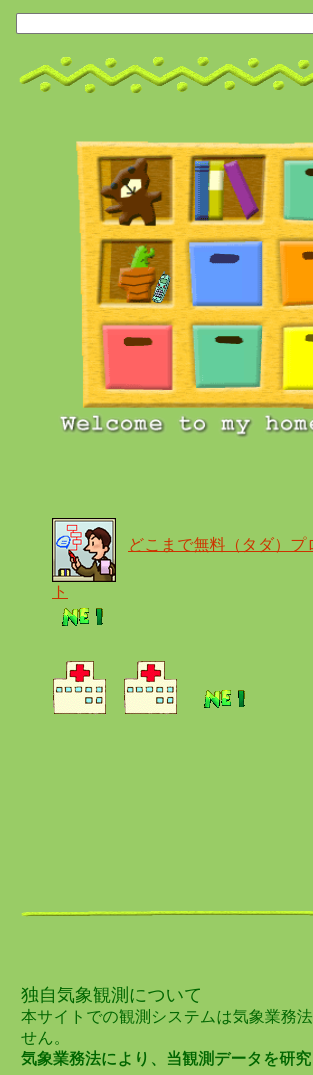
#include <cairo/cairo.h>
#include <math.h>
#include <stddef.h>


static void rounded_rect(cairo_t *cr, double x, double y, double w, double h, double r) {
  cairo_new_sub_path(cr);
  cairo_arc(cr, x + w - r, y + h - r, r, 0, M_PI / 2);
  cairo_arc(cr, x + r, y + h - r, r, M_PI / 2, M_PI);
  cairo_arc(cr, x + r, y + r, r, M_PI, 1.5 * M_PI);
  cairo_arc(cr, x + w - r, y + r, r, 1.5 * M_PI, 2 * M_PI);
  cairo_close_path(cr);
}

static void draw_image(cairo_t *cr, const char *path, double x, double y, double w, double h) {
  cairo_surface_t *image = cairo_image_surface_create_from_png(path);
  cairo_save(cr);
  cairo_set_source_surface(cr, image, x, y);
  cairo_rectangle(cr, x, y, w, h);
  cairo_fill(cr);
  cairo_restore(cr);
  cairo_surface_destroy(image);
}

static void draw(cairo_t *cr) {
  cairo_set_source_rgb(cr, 153 / 255.0, 204 / 255.0, 102 / 255.0);
  cairo_paint(cr);
  cairo_set_source_rgb(cr, 1, 1, 1);
  rounded_rect(cr, 16.5, 13.5, 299, 20, 1.5);
  cairo_fill_preserve(cr);
  cairo_set_source_rgb(cr, 118 / 255.0, 118 / 255.0, 118 / 255.0);
  cairo_set_line_width(cr, 1);
  cairo_stroke(cr);
  draw_image(cr, "images/1.png", 19, 57, 294, 36);
  draw_image(cr, "images/2.png", 58, 141, 255, 298);
  draw_image(cr, "images/3.png", 195, 162, 14, 57);
  draw_image(cr, "images/4.png", 108, 335, 58, 50);
  draw_image(cr, "images/5.png", 196, 162, 12, 57);
  draw_image(cr, "images/6.png", 287, 161, 26, 58);
  draw_image(cr, "images/7.png", 152, 271, 19, 32);
  draw_image(cr, "images/8.png", 195, 252, 47, 47);
  draw_image(cr, "images/9.png", 287, 246, 26, 52);
  draw_image(cr, "images/10.png", 123, 337, 32, 48);
  draw_image(cr, "images/11.png", 202, 335, 42, 46);
  draw_image(cr, "images/12.png", 289, 329, 24, 54);
  draw_image(cr, "images/13.png", 52, 518, 64, 64);
  cairo_set_source_rgb(cr, 204 / 255.0, 51 / 255.0, 0);
  cairo_rectangle(cr, 128, 551, 185, 1);
  cairo_fill(cr);
  cairo_rectangle(cr, 52, 598, 16, 1);
  cairo_fill(cr);
  draw_image(cr, "images/14.png", 62, 608, 41, 18);
  draw_image(cr, "images/15.png", 53, 661, 53, 54);
  draw_image(cr, "images/15.png", 124, 661, 53, 54);
  draw_image(cr, "images/14.png", 204, 690, 41, 18);
  draw_image(cr, "images/16.png", 21, 911, 292, 6);
  cairo_select_font_face(cr, "WenQuanYi Zen Hei Medium", CAIRO_FONT_SLANT_NORMAL, CAIRO_FONT_WEIGHT_NORMAL);
  cairo_set_font_size(cr, 16);
  cairo_move_to(cr, 128, 550);
  cairo_show_text(cr, "どこまで無料（タダ）プロ");
  cairo_move_to(cr, 52, 597);
  cairo_show_text(cr, "ト");
  cairo_set_font_size(cr, 18);
  cairo_set_source_rgb(cr, 0, 102 / 255.0, 0);
  cairo_move_to(cr, 21, 1001);
  cairo_show_text(cr, "独自気象観測について");
  cairo_set_font_size(cr, 16);
  cairo_move_to(cr, 21, 1022);
  cairo_show_text(cr, "本サイトでの観測システムは気象業務法");
  cairo_move_to(cr, 21, 1043);
  cairo_show_text(cr, "せん。");
  cairo_select_font_face(cr, "WenQuanYi Zen Hei", CAIRO_FONT_SLANT_NORMAL, CAIRO_FONT_WEIGHT_BOLD);
  cairo_move_to(cr, 21, 1064);
  cairo_show_text(cr, "気象業務法により、当観測データを研究");
}

int main(void) {
  cairo_surface_t *surface = cairo_image_surface_create(CAIRO_FORMAT_RGB24, 313, 1075);
  cairo_t *cr = cairo_create(surface);
  cairo_font_options_t *options = cairo_font_options_create();
  cairo_font_options_set_hint_metrics(options, CAIRO_HINT_METRICS_OFF);
  cairo_font_options_set_hint_style(options, CAIRO_HINT_STYLE_NONE);
  cairo_set_font_options(cr, options);
  cairo_set_miter_limit(cr, 4);
  draw(cr);
  cairo_surface_write_to_png(surface, "out.png");
  cairo_font_options_destroy(options);
  cairo_destroy(cr);
  cairo_surface_destroy(surface);
  return 0;
}
